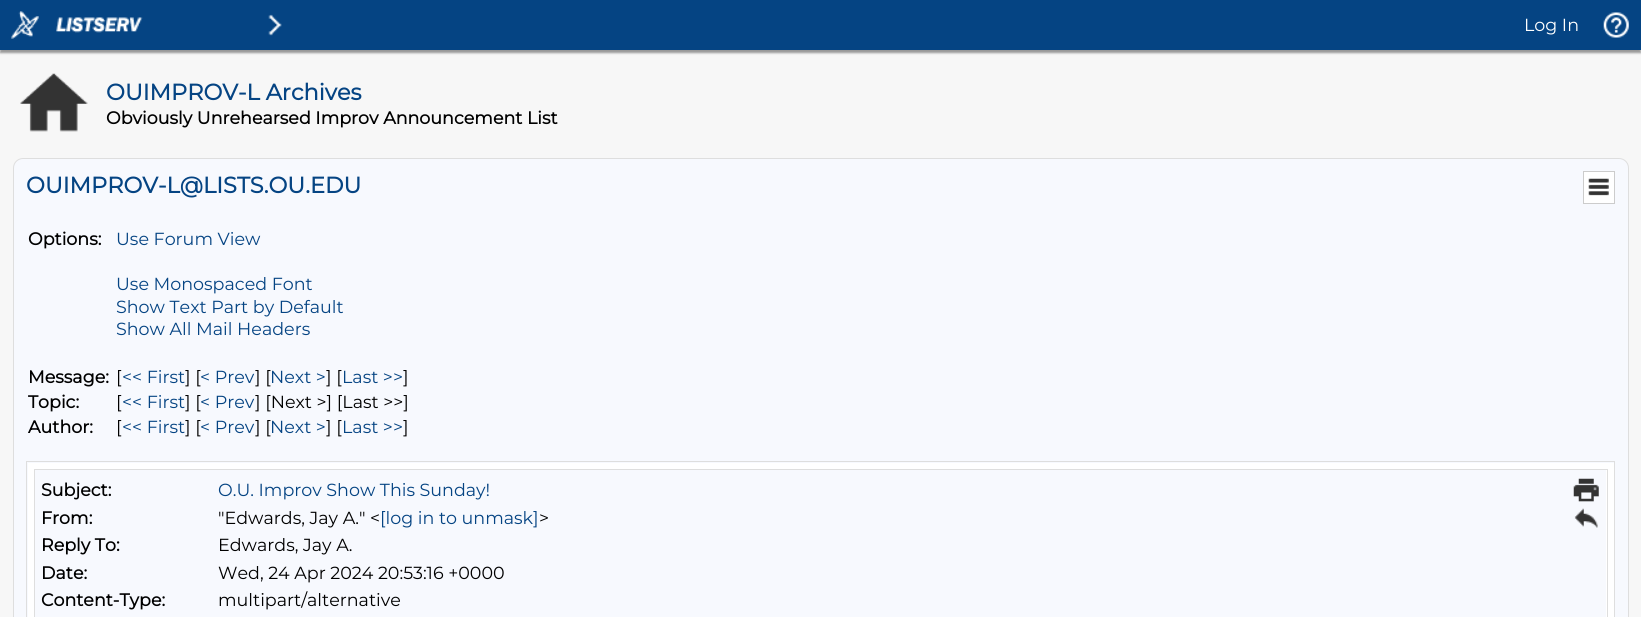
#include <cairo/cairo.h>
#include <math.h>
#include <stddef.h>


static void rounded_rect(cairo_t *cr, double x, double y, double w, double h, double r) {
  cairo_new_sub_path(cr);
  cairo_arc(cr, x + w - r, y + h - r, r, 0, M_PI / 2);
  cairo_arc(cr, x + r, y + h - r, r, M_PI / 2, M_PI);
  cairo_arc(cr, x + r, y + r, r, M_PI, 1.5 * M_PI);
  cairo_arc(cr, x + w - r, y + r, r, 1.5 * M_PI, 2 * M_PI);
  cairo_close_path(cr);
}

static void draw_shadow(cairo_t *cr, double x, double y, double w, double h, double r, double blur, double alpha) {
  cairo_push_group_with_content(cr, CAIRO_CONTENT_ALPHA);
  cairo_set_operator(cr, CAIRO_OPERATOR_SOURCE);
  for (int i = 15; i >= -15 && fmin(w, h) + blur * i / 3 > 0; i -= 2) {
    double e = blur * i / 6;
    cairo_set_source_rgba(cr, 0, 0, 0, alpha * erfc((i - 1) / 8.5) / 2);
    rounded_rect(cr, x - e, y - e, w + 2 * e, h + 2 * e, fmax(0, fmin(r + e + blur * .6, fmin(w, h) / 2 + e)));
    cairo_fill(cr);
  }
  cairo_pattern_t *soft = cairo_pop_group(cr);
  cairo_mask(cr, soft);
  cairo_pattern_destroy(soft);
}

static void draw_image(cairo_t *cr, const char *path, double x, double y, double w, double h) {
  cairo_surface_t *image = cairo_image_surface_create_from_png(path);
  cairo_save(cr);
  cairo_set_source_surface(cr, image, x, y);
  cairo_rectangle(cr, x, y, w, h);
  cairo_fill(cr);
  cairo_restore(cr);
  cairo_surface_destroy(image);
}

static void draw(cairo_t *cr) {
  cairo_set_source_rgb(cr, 247 / 255.0, 247 / 255.0, 247 / 255.0);
  cairo_paint(cr);
  cairo_set_source_rgb(cr, 153 / 255.0, 153 / 255.0, 153 / 255.0);
  draw_shadow(cr, 0, 3, 1641, 50, 0, 1, 1);
  cairo_set_source_rgb(cr, 5 / 255.0, 68 / 255.0, 131 / 255.0);
  cairo_rectangle(cr, 0, 0, 1641, 50);
  cairo_fill(cr);
  draw_image(cr, "images/1.png", 11, 11, 28, 28);
  draw_image(cr, "images/2.png", 56, 17, 87, 16);
  draw_image(cr, "images/3.png", 268, 14, 14, 22);
  draw_image(cr, "images/4.png", 1603, 12, 26, 26);
  draw_image(cr, "images/5.png", 20, 73, 68, 59);
  cairo_set_source_rgb(cr, 247 / 255.0, 249 / 255.0, 254 / 255.0);
  rounded_rect(cr, 13.5, 158.5, 1615, 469, 9.5);
  cairo_fill_preserve(cr);
  cairo_set_source_rgb(cr, 222 / 255.0, 222 / 255.0, 222 / 255.0);
  cairo_set_line_width(cr, 1);
  cairo_stroke(cr);
  cairo_set_source_rgb(cr, 1, 1, 1);
  cairo_rectangle(cr, 1583.5, 171.5, 31, 32);
  cairo_fill_preserve(cr);
  cairo_set_source_rgb(cr, 204 / 255.0, 204 / 255.0, 204 / 255.0);
  cairo_stroke(cr);
  draw_image(cr, "images/6.png", 1588, 178, 21, 18);
  cairo_rectangle(cr, 26.5, 461.5, 1588, 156);
  cairo_set_source_rgb(cr, 222 / 255.0, 222 / 255.0, 222 / 255.0);
  cairo_stroke(cr);
  cairo_set_source_rgb(cr, 1, 1, 1);
  cairo_rectangle(cr, 28, 463, 1586, 154);
  cairo_fill(cr);
  cairo_rectangle(cr, 34.5, 469.5, 1573, 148);
  cairo_set_source_rgb(cr, 222 / 255.0, 222 / 255.0, 222 / 255.0);
  cairo_stroke(cr);
  cairo_set_source_rgb(cr, 247 / 255.0, 249 / 255.0, 254 / 255.0);
  cairo_rectangle(cr, 35, 470, 1571, 147);
  cairo_fill(cr);
  draw_image(cr, "images/7.png", 1573, 478, 26, 24);
  draw_image(cr, "images/8.png", 1574, 508, 24, 20);
  cairo_select_font_face(cr, "Montserrat Thin", CAIRO_FONT_SLANT_NORMAL, CAIRO_FONT_WEIGHT_NORMAL);
  cairo_set_font_size(cr, 17.5);
  cairo_set_source_rgb(cr, 1, 1, 1);
  cairo_move_to(cr, 1524, 31);
  cairo_show_text(cr, "Log In");
  cairo_select_font_face(cr, "Montserrat", CAIRO_FONT_SLANT_NORMAL, CAIRO_FONT_WEIGHT_BOLD);
  cairo_set_font_size(cr, 22.5);
  cairo_set_source_rgb(cr, 5 / 255.0, 68 / 255.0, 131 / 255.0);
  cairo_move_to(cr, 106, 100);
  cairo_show_text(cr, "OUIMPROV-L Archives");
  cairo_set_font_size(cr, 17.5);
  cairo_set_source_rgb(cr, 0, 0, 0);
  cairo_move_to(cr, 106, 124);
  cairo_show_text(cr, "Obviously Unrehearsed Improv Announcement List");
  cairo_set_font_size(cr, 22.5);
  cairo_set_source_rgb(cr, 5 / 255.0, 68 / 255.0, 131 / 255.0);
  cairo_move_to(cr, 26, 193);
  cairo_show_text(cr, "OUIMPROV-L@LISTS.OU.EDU");
  cairo_set_font_size(cr, 17.5);
  cairo_set_source_rgb(cr, 0, 0, 0);
  cairo_move_to(cr, 28, 245);
  cairo_show_text(cr, "Options:");
  cairo_select_font_face(cr, "Montserrat Thin", CAIRO_FONT_SLANT_NORMAL, CAIRO_FONT_WEIGHT_NORMAL);
  cairo_set_source_rgb(cr, 5 / 255.0, 68 / 255.0, 131 / 255.0);
  cairo_move_to(cr, 116, 245);
  cairo_show_text(cr, "Use Forum View");
  cairo_move_to(cr, 116, 290);
  cairo_show_text(cr, "Use Monospaced Font");
  cairo_move_to(cr, 116, 313);
  cairo_show_text(cr, "Show Text Part by Default");
  cairo_move_to(cr, 116, 335);
  cairo_show_text(cr, "Show All Mail Headers");
  cairo_select_font_face(cr, "Montserrat", CAIRO_FONT_SLANT_NORMAL, CAIRO_FONT_WEIGHT_BOLD);
  cairo_set_source_rgb(cr, 0, 0, 0);
  cairo_move_to(cr, 28, 383);
  cairo_show_text(cr, "Message:");
  cairo_select_font_face(cr, "Montserrat Thin", CAIRO_FONT_SLANT_NORMAL, CAIRO_FONT_WEIGHT_NORMAL);
  cairo_move_to(cr, 116, 383);
  cairo_show_text(cr, "[");
  cairo_set_source_rgb(cr, 5 / 255.0, 68 / 255.0, 131 / 255.0);
  cairo_move_to(cr, 122, 383);
  cairo_show_text(cr, "<< First");
  cairo_set_source_rgb(cr, 0, 0, 0);
  cairo_move_to(cr, 185, 383);
  cairo_show_text(cr, "] [");
  cairo_set_source_rgb(cr, 5 / 255.0, 68 / 255.0, 131 / 255.0);
  cairo_move_to(cr, 200, 383);
  cairo_show_text(cr, "< Prev");
  cairo_set_source_rgb(cr, 0, 0, 0);
  cairo_move_to(cr, 255, 383);
  cairo_show_text(cr, "] [");
  cairo_set_source_rgb(cr, 5 / 255.0, 68 / 255.0, 131 / 255.0);
  cairo_move_to(cr, 270, 383);
  cairo_show_text(cr, "Next >");
  cairo_set_source_rgb(cr, 0, 0, 0);
  cairo_move_to(cr, 326, 383);
  cairo_show_text(cr, "] [");
  cairo_set_source_rgb(cr, 5 / 255.0, 68 / 255.0, 131 / 255.0);
  cairo_move_to(cr, 342, 383);
  cairo_show_text(cr, "Last >>");
  cairo_set_source_rgb(cr, 0, 0, 0);
  cairo_move_to(cr, 403, 383);
  cairo_show_text(cr, "]");
  cairo_select_font_face(cr, "Montserrat", CAIRO_FONT_SLANT_NORMAL, CAIRO_FONT_WEIGHT_BOLD);
  cairo_move_to(cr, 28, 408);
  cairo_show_text(cr, "Topic:");
  cairo_select_font_face(cr, "Montserrat Thin", CAIRO_FONT_SLANT_NORMAL, CAIRO_FONT_WEIGHT_NORMAL);
  cairo_move_to(cr, 116, 408);
  cairo_show_text(cr, "[");
  cairo_set_source_rgb(cr, 5 / 255.0, 68 / 255.0, 131 / 255.0);
  cairo_move_to(cr, 122, 408);
  cairo_show_text(cr, "<< First");
  cairo_set_source_rgb(cr, 0, 0, 0);
  cairo_move_to(cr, 185, 408);
  cairo_show_text(cr, "] [");
  cairo_set_source_rgb(cr, 5 / 255.0, 68 / 255.0, 131 / 255.0);
  cairo_move_to(cr, 200, 408);
  cairo_show_text(cr, "< Prev");
  cairo_set_source_rgb(cr, 0, 0, 0);
  cairo_move_to(cr, 255, 408);
  cairo_show_text(cr, "] [Next >] [Last >>]");
  cairo_select_font_face(cr, "Montserrat", CAIRO_FONT_SLANT_NORMAL, CAIRO_FONT_WEIGHT_BOLD);
  cairo_move_to(cr, 28, 433);
  cairo_show_text(cr, "Author:");
  cairo_select_font_face(cr, "Montserrat Thin", CAIRO_FONT_SLANT_NORMAL, CAIRO_FONT_WEIGHT_NORMAL);
  cairo_move_to(cr, 116, 433);
  cairo_show_text(cr, "[");
  cairo_set_source_rgb(cr, 5 / 255.0, 68 / 255.0, 131 / 255.0);
  cairo_move_to(cr, 122, 433);
  cairo_show_text(cr, "<< First");
  cairo_set_source_rgb(cr, 0, 0, 0);
  cairo_move_to(cr, 185, 433);
  cairo_show_text(cr, "] [");
  cairo_set_source_rgb(cr, 5 / 255.0, 68 / 255.0, 131 / 255.0);
  cairo_move_to(cr, 200, 433);
  cairo_show_text(cr, "< Prev");
  cairo_set_source_rgb(cr, 0, 0, 0);
  cairo_move_to(cr, 255, 433);
  cairo_show_text(cr, "] [");
  cairo_set_source_rgb(cr, 5 / 255.0, 68 / 255.0, 131 / 255.0);
  cairo_move_to(cr, 270, 433);
  cairo_show_text(cr, "Next >");
  cairo_set_source_rgb(cr, 0, 0, 0);
  cairo_move_to(cr, 326, 433);
  cairo_show_text(cr, "] [");
  cairo_set_source_rgb(cr, 5 / 255.0, 68 / 255.0, 131 / 255.0);
  cairo_move_to(cr, 342, 433);
  cairo_show_text(cr, "Last >>");
  cairo_set_source_rgb(cr, 0, 0, 0);
  cairo_move_to(cr, 403, 433);
  cairo_show_text(cr, "]");
  cairo_select_font_face(cr, "Montserrat", CAIRO_FONT_SLANT_NORMAL, CAIRO_FONT_WEIGHT_BOLD);
  cairo_move_to(cr, 41, 496);
  cairo_show_text(cr, "Subject:");
  cairo_select_font_face(cr, "Montserrat Thin", CAIRO_FONT_SLANT_NORMAL, CAIRO_FONT_WEIGHT_NORMAL);
  cairo_set_source_rgb(cr, 5 / 255.0, 68 / 255.0, 131 / 255.0);
  cairo_move_to(cr, 218, 496);
  cairo_show_text(cr, "O.U. Improv Show This Sunday!");
  cairo_select_font_face(cr, "Montserrat", CAIRO_FONT_SLANT_NORMAL, CAIRO_FONT_WEIGHT_BOLD);
  cairo_set_source_rgb(cr, 0, 0, 0);
  cairo_move_to(cr, 41, 524);
  cairo_show_text(cr, "From:");
  cairo_select_font_face(cr, "Montserrat Thin", CAIRO_FONT_SLANT_NORMAL, CAIRO_FONT_WEIGHT_NORMAL);
  cairo_move_to(cr, 218, 524);
  cairo_show_text(cr, "\"Edwards, Jay A.\" <");
  cairo_set_source_rgb(cr, 5 / 255.0, 68 / 255.0, 131 / 255.0);
  cairo_move_to(cr, 380, 524);
  cairo_show_text(cr, "[log in to unmask]");
  cairo_set_source_rgb(cr, 0, 0, 0);
  cairo_move_to(cr, 539, 524);
  cairo_show_text(cr, ">");
  cairo_select_font_face(cr, "Montserrat", CAIRO_FONT_SLANT_NORMAL, CAIRO_FONT_WEIGHT_BOLD);
  cairo_move_to(cr, 41, 551);
  cairo_show_text(cr, "Reply To:");
  cairo_select_font_face(cr, "Montserrat Thin", CAIRO_FONT_SLANT_NORMAL, CAIRO_FONT_WEIGHT_NORMAL);
  cairo_move_to(cr, 218, 551);
  cairo_show_text(cr, "Edwards, Jay A.");
  cairo_select_font_face(cr, "Montserrat", CAIRO_FONT_SLANT_NORMAL, CAIRO_FONT_WEIGHT_BOLD);
  cairo_move_to(cr, 41, 579);
  cairo_show_text(cr, "Date:");
  cairo_select_font_face(cr, "Montserrat Thin", CAIRO_FONT_SLANT_NORMAL, CAIRO_FONT_WEIGHT_NORMAL);
  cairo_move_to(cr, 218, 579);
  cairo_show_text(cr, "Wed, 24 Apr 2024 20:53:16 +0000");
  cairo_select_font_face(cr, "Montserrat", CAIRO_FONT_SLANT_NORMAL, CAIRO_FONT_WEIGHT_BOLD);
  cairo_move_to(cr, 41, 606);
  cairo_show_text(cr, "Content-Type:");
  cairo_select_font_face(cr, "Montserrat Thin", CAIRO_FONT_SLANT_NORMAL, CAIRO_FONT_WEIGHT_NORMAL);
  cairo_move_to(cr, 218, 606);
  cairo_show_text(cr, "multipart/alternative");
}

int main(void) {
  cairo_surface_t *surface = cairo_image_surface_create(CAIRO_FORMAT_RGB24, 1641, 617);
  cairo_t *cr = cairo_create(surface);
  cairo_font_options_t *options = cairo_font_options_create();
  cairo_font_options_set_hint_metrics(options, CAIRO_HINT_METRICS_OFF);
  cairo_font_options_set_hint_style(options, CAIRO_HINT_STYLE_NONE);
  cairo_set_font_options(cr, options);
  cairo_set_miter_limit(cr, 4);
  draw(cr);
  cairo_surface_write_to_png(surface, "out.png");
  cairo_font_options_destroy(options);
  cairo_destroy(cr);
  cairo_surface_destroy(surface);
  return 0;
}
